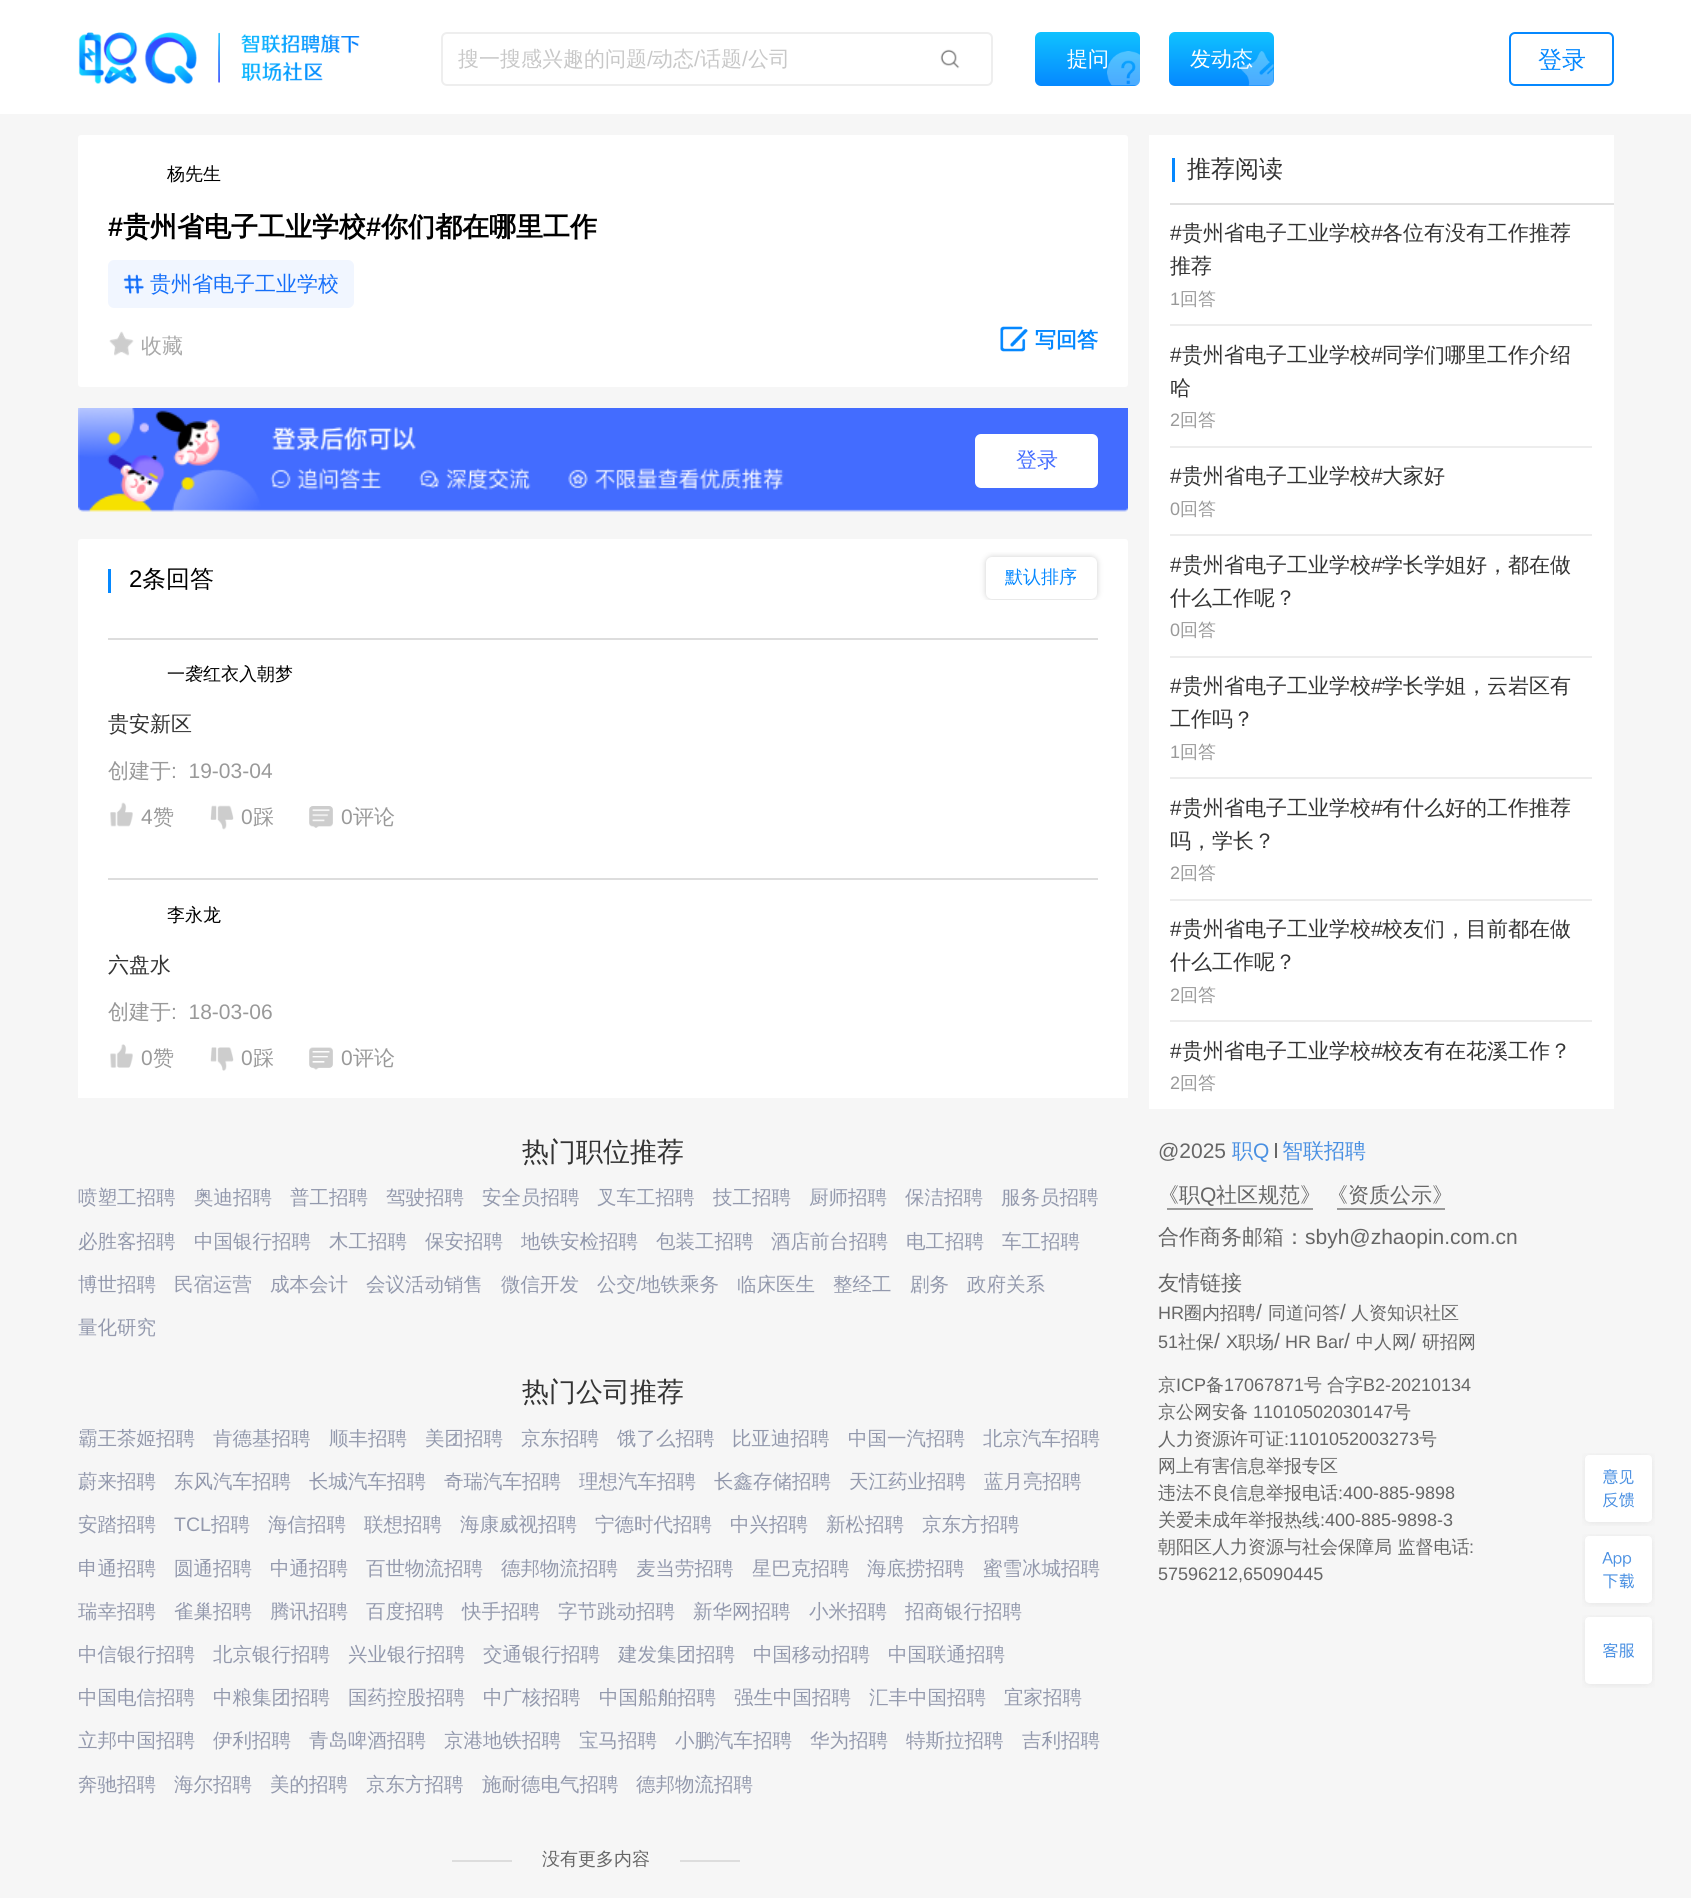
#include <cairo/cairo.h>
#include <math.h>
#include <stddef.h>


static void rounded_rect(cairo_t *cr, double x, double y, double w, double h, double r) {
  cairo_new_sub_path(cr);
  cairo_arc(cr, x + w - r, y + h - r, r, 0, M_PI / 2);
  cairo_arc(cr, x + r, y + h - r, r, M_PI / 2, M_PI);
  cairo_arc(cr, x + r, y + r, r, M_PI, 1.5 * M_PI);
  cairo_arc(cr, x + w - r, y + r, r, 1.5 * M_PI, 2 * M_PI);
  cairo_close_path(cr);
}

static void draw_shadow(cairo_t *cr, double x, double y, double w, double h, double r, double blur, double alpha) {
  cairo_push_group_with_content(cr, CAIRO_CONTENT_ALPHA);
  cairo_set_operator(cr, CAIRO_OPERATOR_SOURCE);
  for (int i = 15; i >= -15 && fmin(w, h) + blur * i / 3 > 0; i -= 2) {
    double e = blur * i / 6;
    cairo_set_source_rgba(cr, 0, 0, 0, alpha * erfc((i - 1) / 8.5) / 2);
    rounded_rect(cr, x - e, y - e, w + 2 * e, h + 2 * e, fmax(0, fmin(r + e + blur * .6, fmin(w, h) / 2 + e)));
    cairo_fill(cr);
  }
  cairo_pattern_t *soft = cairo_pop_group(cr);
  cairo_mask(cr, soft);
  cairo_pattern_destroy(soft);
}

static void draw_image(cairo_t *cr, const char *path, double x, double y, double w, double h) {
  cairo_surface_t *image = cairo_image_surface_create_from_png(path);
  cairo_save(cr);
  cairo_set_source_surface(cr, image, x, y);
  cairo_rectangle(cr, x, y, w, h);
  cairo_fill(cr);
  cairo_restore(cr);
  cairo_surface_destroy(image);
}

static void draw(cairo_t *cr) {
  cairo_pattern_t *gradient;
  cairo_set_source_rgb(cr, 246 / 255.0, 246 / 255.0, 246 / 255.0);
  cairo_paint(cr);
  cairo_set_source_rgb(cr, 1, 1, 1);
  cairo_rectangle(cr, 0, 0, 1691, 114);
  cairo_fill(cr);
  draw_image(cr, "images/1.png", 78, 32, 282, 52);
  rounded_rect(cr, 442, 33, 550, 52, 5);
  cairo_set_source_rgb(cr, 238 / 255.0, 238 / 255.0, 238 / 255.0);
  cairo_stroke(cr);
  draw_image(cr, "images/2.png", 940, 49, 20, 20);
  gradient = cairo_pattern_create_linear(1088, 31, 1088, 86);
  cairo_pattern_add_color_stop_rgba(gradient, 0, 16 / 255.0, 195 / 255.0, 1, 1);
  cairo_pattern_add_color_stop_rgba(gradient, 1, 5 / 255.0, 136 / 255.0, 1, 1);
  cairo_set_source(cr, gradient);
  cairo_pattern_destroy(gradient);
  rounded_rect(cr, 1035, 32, 105, 54, 6);
  cairo_fill(cr);
  draw_image(cr, "images/3.png", 1107, 51, 33, 35);
  gradient = cairo_pattern_create_linear(1221, 31, 1221, 86);
  cairo_pattern_add_color_stop_rgba(gradient, 0, 16 / 255.0, 195 / 255.0, 1, 1);
  cairo_pattern_add_color_stop_rgba(gradient, 1, 5 / 255.0, 136 / 255.0, 1, 1);
  cairo_set_source(cr, gradient);
  cairo_pattern_destroy(gradient);
  rounded_rect(cr, 1169, 32, 105, 54, 6);
  cairo_fill(cr);
  draw_image(cr, "images/4.png", 1240, 51, 34, 35);
  rounded_rect(cr, 1510, 33, 103, 52, 5);
  cairo_set_source_rgb(cr, 5 / 255.0, 136 / 255.0, 1);
  cairo_stroke(cr);
  draw_image(cr, "images/5.png", 1582, 1453, 73, 73);
  draw_image(cr, "images/6.png", 1582, 1534, 73, 73);
  draw_image(cr, "images/7.png", 1582, 1615, 73, 73);
  cairo_set_source_rgb(cr, 1, 1, 1);
  rounded_rect(cr, 78, 135, 1050, 252, 3);
  cairo_fill(cr);
  cairo_set_source_rgb(cr, 241 / 255.0, 246 / 255.0, 1);
  rounded_rect(cr, 108, 260, 246, 48, 6);
  cairo_fill(cr);
  draw_image(cr, "images/8.png", 123, 274, 21, 20);
  draw_image(cr, "images/9.png", 109, 331, 25, 25);
  draw_image(cr, "images/10.png", 1000, 326, 28, 26);
  draw_image(cr, "images/11.png", 78, 408, 1050, 104);
  cairo_set_source_rgb(cr, 1, 1, 1);
  rounded_rect(cr, 975, 434, 123, 54, 6);
  cairo_fill(cr);
  rounded_rect(cr, 78, 539, 1050, 559, 3);
  cairo_fill(cr);
  cairo_set_source_rgb(cr, 5 / 255.0, 136 / 255.0, 1);
  cairo_rectangle(cr, 108, 569, 3, 24);
  cairo_fill(cr);
  cairo_save(cr);
  cairo_rectangle(cr, 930, 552, 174, 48);
  cairo_clip(cr);
  cairo_set_source_rgb(cr, 206 / 255.0, 206 / 255.0, 206 / 255.0);
  draw_shadow(cr, 986, 557, 111, 42, 6, 3, 1);
  cairo_restore(cr);
  cairo_set_source_rgb(cr, 1, 1, 1);
  rounded_rect(cr, 986, 557, 111, 42, 6);
  cairo_fill(cr);
  cairo_set_source_rgb(cr, 221 / 255.0, 221 / 255.0, 221 / 255.0);
  cairo_rectangle(cr, 108, 638, 990, 2);
  cairo_fill(cr);
  draw_image(cr, "images/12.png", 110, 802, 23, 25);
  draw_image(cr, "images/13.png", 210, 805, 24, 25);
  draw_image(cr, "images/14.png", 309, 806, 24, 22);
  cairo_set_source_rgb(cr, 1, 1, 1);
  cairo_rectangle(cr, 78, 1096, 1050, 2);
  cairo_fill(cr);
  cairo_set_source_rgb(cr, 221 / 255.0, 221 / 255.0, 221 / 255.0);
  cairo_rectangle(cr, 108, 878, 990, 2);
  cairo_fill(cr);
  draw_image(cr, "images/15.png", 110, 1044, 23, 24);
  draw_image(cr, "images/16.png", 210, 1047, 24, 24);
  draw_image(cr, "images/17.png", 309, 1047, 24, 23);
  cairo_set_source_rgb(cr, 1, 1, 1);
  cairo_rectangle(cr, 1149, 135, 465, 974);
  cairo_fill(cr);
  cairo_set_source_rgb(cr, 5 / 255.0, 136 / 255.0, 1);
  cairo_rectangle(cr, 1172, 158, 3, 24);
  cairo_fill(cr);
  cairo_set_source_rgb(cr, 225 / 255.0, 225 / 255.0, 225 / 255.0);
  cairo_rectangle(cr, 1170, 203, 444, 2);
  cairo_fill(cr);
  cairo_set_source_rgb(cr, 237 / 255.0, 237 / 255.0, 237 / 255.0);
  cairo_rectangle(cr, 1170, 324, 422, 2);
  cairo_fill(cr);
  cairo_rectangle(cr, 1170, 446, 422, 2);
  cairo_fill(cr);
  cairo_rectangle(cr, 1170, 534, 422, 2);
  cairo_fill(cr);
  cairo_rectangle(cr, 1170, 656, 422, 2);
  cairo_fill(cr);
  cairo_rectangle(cr, 1170, 777, 422, 2);
  cairo_fill(cr);
  cairo_rectangle(cr, 1170, 899, 422, 2);
  cairo_fill(cr);
  cairo_rectangle(cr, 1170, 1020, 422, 2);
  cairo_fill(cr);
  cairo_set_source_rgb(cr, 102 / 255.0, 102 / 255.0, 102 / 255.0);
  cairo_rectangle(cr, 1275, 1143, 2, 15);
  cairo_fill(cr);
  cairo_set_source_rgb(cr, 153 / 255.0, 153 / 255.0, 153 / 255.0);
  cairo_rectangle(cr, 1167, 1208, 146, 2);
  cairo_fill(cr);
  cairo_rectangle(cr, 1337, 1208, 108, 2);
  cairo_fill(cr);
  cairo_set_source_rgb(cr, 221 / 255.0, 221 / 255.0, 221 / 255.0);
  cairo_rectangle(cr, 452, 1860, 60, 2);
  cairo_fill(cr);
  cairo_rectangle(cr, 680, 1860, 60, 2);
  cairo_fill(cr);
  cairo_select_font_face(cr, "WenQuanYi Zen Hei Medium", CAIRO_FONT_SLANT_NORMAL, CAIRO_FONT_WEIGHT_NORMAL);
  cairo_set_font_size(cr, 21);
  cairo_set_source_rgb(cr, 200 / 255.0, 200 / 255.0, 200 / 255.0);
  cairo_move_to(cr, 458, 66);
  cairo_show_text(cr, "搜一搜感兴趣的问题");
  cairo_select_font_face(cr, "Liberation Sans", CAIRO_FONT_SLANT_NORMAL, CAIRO_FONT_WEIGHT_NORMAL);
  cairo_move_to(cr, 647, 66);
  cairo_show_text(cr, "/");
  cairo_select_font_face(cr, "WenQuanYi Zen Hei Medium", CAIRO_FONT_SLANT_NORMAL, CAIRO_FONT_WEIGHT_NORMAL);
  cairo_move_to(cr, 652, 66);
  cairo_show_text(cr, "动态");
  cairo_select_font_face(cr, "Liberation Sans", CAIRO_FONT_SLANT_NORMAL, CAIRO_FONT_WEIGHT_NORMAL);
  cairo_move_to(cr, 694, 66);
  cairo_show_text(cr, "/");
  cairo_select_font_face(cr, "WenQuanYi Zen Hei Medium", CAIRO_FONT_SLANT_NORMAL, CAIRO_FONT_WEIGHT_NORMAL);
  cairo_move_to(cr, 700, 66);
  cairo_show_text(cr, "话题");
  cairo_select_font_face(cr, "Liberation Sans", CAIRO_FONT_SLANT_NORMAL, CAIRO_FONT_WEIGHT_NORMAL);
  cairo_move_to(cr, 742, 66);
  cairo_show_text(cr, "/");
  cairo_select_font_face(cr, "WenQuanYi Zen Hei Medium", CAIRO_FONT_SLANT_NORMAL, CAIRO_FONT_WEIGHT_NORMAL);
  cairo_move_to(cr, 748, 66);
  cairo_show_text(cr, "公司");
  cairo_set_source_rgb(cr, 1, 1, 1);
  cairo_move_to(cr, 1067, 66);
  cairo_show_text(cr, "提问");
  cairo_move_to(cr, 1190, 66);
  cairo_show_text(cr, "发动态");
  cairo_set_font_size(cr, 24);
  cairo_set_source_rgb(cr, 5 / 255.0, 136 / 255.0, 1);
  cairo_move_to(cr, 1538, 68);
  cairo_show_text(cr, "登录");
  cairo_set_font_size(cr, 18);
  cairo_set_source_rgb(cr, 0, 0, 0);
  cairo_move_to(cr, 167, 180);
  cairo_show_text(cr, "杨先生");
  cairo_select_font_face(cr, "Liberation Sans", CAIRO_FONT_SLANT_NORMAL, CAIRO_FONT_WEIGHT_BOLD);
  cairo_set_font_size(cr, 27);
  cairo_move_to(cr, 108, 236);
  cairo_show_text(cr, "#");
  cairo_select_font_face(cr, "WenQuanYi Zen Hei", CAIRO_FONT_SLANT_NORMAL, CAIRO_FONT_WEIGHT_BOLD);
  cairo_move_to(cr, 123, 236);
  cairo_show_text(cr, "贵州省电子工业学校");
  cairo_select_font_face(cr, "Liberation Sans", CAIRO_FONT_SLANT_NORMAL, CAIRO_FONT_WEIGHT_BOLD);
  cairo_move_to(cr, 366, 236);
  cairo_show_text(cr, "#");
  cairo_select_font_face(cr, "WenQuanYi Zen Hei", CAIRO_FONT_SLANT_NORMAL, CAIRO_FONT_WEIGHT_BOLD);
  cairo_move_to(cr, 381, 236);
  cairo_show_text(cr, "你们都在哪里工作");
  cairo_select_font_face(cr, "WenQuanYi Zen Hei Medium", CAIRO_FONT_SLANT_NORMAL, CAIRO_FONT_WEIGHT_NORMAL);
  cairo_set_font_size(cr, 21);
  cairo_set_source_rgb(cr, 21 / 255.0, 111 / 255.0, 249 / 255.0);
  cairo_move_to(cr, 150, 291);
  cairo_show_text(cr, "贵州省电子工业学校");
  cairo_set_source_rgb(cr, 169 / 255.0, 169 / 255.0, 169 / 255.0);
  cairo_move_to(cr, 141, 353);
  cairo_show_text(cr, "收藏");
  cairo_select_font_face(cr, "WenQuanYi Zen Hei", CAIRO_FONT_SLANT_NORMAL, CAIRO_FONT_WEIGHT_BOLD);
  cairo_set_source_rgb(cr, 5 / 255.0, 136 / 255.0, 1);
  cairo_move_to(cr, 1035, 347);
  cairo_show_text(cr, "写回答");
  cairo_select_font_face(cr, "WenQuanYi Zen Hei Medium", CAIRO_FONT_SLANT_NORMAL, CAIRO_FONT_WEIGHT_NORMAL);
  cairo_set_source_rgb(cr, 67 / 255.0, 108 / 255.0, 1);
  cairo_move_to(cr, 1016, 467);
  cairo_show_text(cr, "登录");
  cairo_select_font_face(cr, "Liberation Sans", CAIRO_FONT_SLANT_NORMAL, CAIRO_FONT_WEIGHT_NORMAL);
  cairo_set_font_size(cr, 24);
  cairo_set_source_rgb(cr, 0, 0, 0);
  cairo_move_to(cr, 129, 587);
  cairo_show_text(cr, "2");
  cairo_select_font_face(cr, "WenQuanYi Zen Hei Medium", CAIRO_FONT_SLANT_NORMAL, CAIRO_FONT_WEIGHT_NORMAL);
  cairo_move_to(cr, 142, 587);
  cairo_show_text(cr, "条回答");
  cairo_set_font_size(cr, 18);
  cairo_set_source_rgb(cr, 5 / 255.0, 136 / 255.0, 1);
  cairo_move_to(cr, 1005, 583);
  cairo_show_text(cr, "默认排序");
  cairo_set_source_rgb(cr, 0, 0, 0);
  cairo_move_to(cr, 167, 680);
  cairo_show_text(cr, "一袭红衣入朝梦");
  cairo_set_font_size(cr, 21);
  cairo_set_source_rgb(cr, 51 / 255.0, 51 / 255.0, 51 / 255.0);
  cairo_move_to(cr, 108, 731);
  cairo_show_text(cr, "贵安新区");
  cairo_set_source_rgb(cr, 153 / 255.0, 153 / 255.0, 153 / 255.0);
  cairo_move_to(cr, 108, 778);
  cairo_show_text(cr, "创建于");
  cairo_select_font_face(cr, "Liberation Sans", CAIRO_FONT_SLANT_NORMAL, CAIRO_FONT_WEIGHT_NORMAL);
  cairo_move_to(cr, 171, 778);
  cairo_show_text(cr, ":  19-03-04");
  cairo_move_to(cr, 141, 824);
  cairo_show_text(cr, "4");
  cairo_select_font_face(cr, "WenQuanYi Zen Hei Medium", CAIRO_FONT_SLANT_NORMAL, CAIRO_FONT_WEIGHT_NORMAL);
  cairo_move_to(cr, 153, 824);
  cairo_show_text(cr, "赞");
  cairo_select_font_face(cr, "Liberation Sans", CAIRO_FONT_SLANT_NORMAL, CAIRO_FONT_WEIGHT_NORMAL);
  cairo_move_to(cr, 241, 824);
  cairo_show_text(cr, "0");
  cairo_select_font_face(cr, "WenQuanYi Zen Hei Medium", CAIRO_FONT_SLANT_NORMAL, CAIRO_FONT_WEIGHT_NORMAL);
  cairo_move_to(cr, 253, 824);
  cairo_show_text(cr, "踩");
  cairo_select_font_face(cr, "Liberation Sans", CAIRO_FONT_SLANT_NORMAL, CAIRO_FONT_WEIGHT_NORMAL);
  cairo_move_to(cr, 341, 824);
  cairo_show_text(cr, "0");
  cairo_select_font_face(cr, "WenQuanYi Zen Hei Medium", CAIRO_FONT_SLANT_NORMAL, CAIRO_FONT_WEIGHT_NORMAL);
  cairo_move_to(cr, 353, 824);
  cairo_show_text(cr, "评论");
  cairo_set_font_size(cr, 18);
  cairo_set_source_rgb(cr, 0, 0, 0);
  cairo_move_to(cr, 167, 921);
  cairo_show_text(cr, "李永龙");
  cairo_set_font_size(cr, 21);
  cairo_set_source_rgb(cr, 51 / 255.0, 51 / 255.0, 51 / 255.0);
  cairo_move_to(cr, 108, 972);
  cairo_show_text(cr, "六盘水");
  cairo_set_source_rgb(cr, 153 / 255.0, 153 / 255.0, 153 / 255.0);
  cairo_move_to(cr, 108, 1019);
  cairo_show_text(cr, "创建于");
  cairo_select_font_face(cr, "Liberation Sans", CAIRO_FONT_SLANT_NORMAL, CAIRO_FONT_WEIGHT_NORMAL);
  cairo_move_to(cr, 171, 1019);
  cairo_show_text(cr, ":  18-03-06");
  cairo_move_to(cr, 141, 1065);
  cairo_show_text(cr, "0");
  cairo_select_font_face(cr, "WenQuanYi Zen Hei Medium", CAIRO_FONT_SLANT_NORMAL, CAIRO_FONT_WEIGHT_NORMAL);
  cairo_move_to(cr, 153, 1065);
  cairo_show_text(cr, "赞");
  cairo_select_font_face(cr, "Liberation Sans", CAIRO_FONT_SLANT_NORMAL, CAIRO_FONT_WEIGHT_NORMAL);
  cairo_move_to(cr, 241, 1065);
  cairo_show_text(cr, "0");
  cairo_select_font_face(cr, "WenQuanYi Zen Hei Medium", CAIRO_FONT_SLANT_NORMAL, CAIRO_FONT_WEIGHT_NORMAL);
  cairo_move_to(cr, 253, 1065);
  cairo_show_text(cr, "踩");
  cairo_select_font_face(cr, "Liberation Sans", CAIRO_FONT_SLANT_NORMAL, CAIRO_FONT_WEIGHT_NORMAL);
  cairo_move_to(cr, 341, 1065);
  cairo_show_text(cr, "0");
  cairo_select_font_face(cr, "WenQuanYi Zen Hei Medium", CAIRO_FONT_SLANT_NORMAL, CAIRO_FONT_WEIGHT_NORMAL);
  cairo_move_to(cr, 353, 1065);
  cairo_show_text(cr, "评论");
  cairo_set_font_size(cr, 27);
  cairo_set_source_rgb(cr, 51 / 255.0, 51 / 255.0, 51 / 255.0);
  cairo_move_to(cr, 522, 1161);
  cairo_show_text(cr, "热门职位推荐");
  cairo_set_font_size(cr, 19.5);
  cairo_set_source_rgb(cr, 147 / 255.0, 153 / 255.0, 173 / 255.0);
  cairo_move_to(cr, 78, 1204);
  cairo_show_text(cr, "喷塑工招聘");
  cairo_move_to(cr, 194, 1204);
  cairo_show_text(cr, "奥迪招聘");
  cairo_move_to(cr, 290, 1204);
  cairo_show_text(cr, "普工招聘");
  cairo_move_to(cr, 386, 1204);
  cairo_show_text(cr, "驾驶招聘");
  cairo_move_to(cr, 482, 1204);
  cairo_show_text(cr, "安全员招聘");
  cairo_move_to(cr, 597, 1204);
  cairo_show_text(cr, "叉车工招聘");
  cairo_move_to(cr, 713, 1204);
  cairo_show_text(cr, "技工招聘");
  cairo_move_to(cr, 809, 1204);
  cairo_show_text(cr, "厨师招聘");
  cairo_move_to(cr, 905, 1204);
  cairo_show_text(cr, "保洁招聘");
  cairo_move_to(cr, 1001, 1204);
  cairo_show_text(cr, "服务员招聘");
  cairo_move_to(cr, 78, 1248);
  cairo_show_text(cr, "必胜客招聘");
  cairo_move_to(cr, 194, 1248);
  cairo_show_text(cr, "中国银行招聘");
  cairo_move_to(cr, 329, 1248);
  cairo_show_text(cr, "木工招聘");
  cairo_move_to(cr, 425, 1248);
  cairo_show_text(cr, "保安招聘");
  cairo_move_to(cr, 521, 1248);
  cairo_show_text(cr, "地铁安检招聘");
  cairo_move_to(cr, 656, 1248);
  cairo_show_text(cr, "包装工招聘");
  cairo_move_to(cr, 771, 1248);
  cairo_show_text(cr, "酒店前台招聘");
  cairo_move_to(cr, 906, 1248);
  cairo_show_text(cr, "电工招聘");
  cairo_move_to(cr, 1002, 1248);
  cairo_show_text(cr, "车工招聘");
  cairo_move_to(cr, 78, 1291);
  cairo_show_text(cr, "博世招聘");
  cairo_move_to(cr, 174, 1291);
  cairo_show_text(cr, "民宿运营");
  cairo_move_to(cr, 270, 1291);
  cairo_show_text(cr, "成本会计");
  cairo_move_to(cr, 366, 1291);
  cairo_show_text(cr, "会议活动销售");
  cairo_move_to(cr, 501, 1291);
  cairo_show_text(cr, "微信开发");
  cairo_move_to(cr, 597, 1291);
  cairo_show_text(cr, "公交");
  cairo_select_font_face(cr, "Liberation Sans", CAIRO_FONT_SLANT_NORMAL, CAIRO_FONT_WEIGHT_NORMAL);
  cairo_move_to(cr, 636, 1291);
  cairo_show_text(cr, "/");
  cairo_select_font_face(cr, "WenQuanYi Zen Hei Medium", CAIRO_FONT_SLANT_NORMAL, CAIRO_FONT_WEIGHT_NORMAL);
  cairo_move_to(cr, 641, 1291);
  cairo_show_text(cr, "地铁乘务");
  cairo_move_to(cr, 737, 1291);
  cairo_show_text(cr, "临床医生");
  cairo_move_to(cr, 833, 1291);
  cairo_show_text(cr, "整经工");
  cairo_move_to(cr, 910, 1291);
  cairo_show_text(cr, "剧务");
  cairo_move_to(cr, 967, 1291);
  cairo_show_text(cr, "政府关系");
  cairo_move_to(cr, 78, 1334);
  cairo_show_text(cr, "量化研究");
  cairo_set_font_size(cr, 27);
  cairo_set_source_rgb(cr, 51 / 255.0, 51 / 255.0, 51 / 255.0);
  cairo_move_to(cr, 522, 1401);
  cairo_show_text(cr, "热门公司推荐");
  cairo_set_font_size(cr, 19.5);
  cairo_set_source_rgb(cr, 147 / 255.0, 153 / 255.0, 173 / 255.0);
  cairo_move_to(cr, 78, 1445);
  cairo_show_text(cr, "霸王茶姬招聘");
  cairo_move_to(cr, 213, 1445);
  cairo_show_text(cr, "肯德基招聘");
  cairo_move_to(cr, 329, 1445);
  cairo_show_text(cr, "顺丰招聘");
  cairo_move_to(cr, 425, 1445);
  cairo_show_text(cr, "美团招聘");
  cairo_move_to(cr, 521, 1445);
  cairo_show_text(cr, "京东招聘");
  cairo_move_to(cr, 617, 1445);
  cairo_show_text(cr, "饿了么招聘");
  cairo_move_to(cr, 732, 1445);
  cairo_show_text(cr, "比亚迪招聘");
  cairo_move_to(cr, 848, 1445);
  cairo_show_text(cr, "中国一汽招聘");
  cairo_move_to(cr, 983, 1445);
  cairo_show_text(cr, "北京汽车招聘");
  cairo_move_to(cr, 78, 1488);
  cairo_show_text(cr, "蔚来招聘");
  cairo_move_to(cr, 174, 1488);
  cairo_show_text(cr, "东风汽车招聘");
  cairo_move_to(cr, 309, 1488);
  cairo_show_text(cr, "长城汽车招聘");
  cairo_move_to(cr, 444, 1488);
  cairo_show_text(cr, "奇瑞汽车招聘");
  cairo_move_to(cr, 579, 1488);
  cairo_show_text(cr, "理想汽车招聘");
  cairo_move_to(cr, 714, 1488);
  cairo_show_text(cr, "长鑫存储招聘");
  cairo_move_to(cr, 849, 1488);
  cairo_show_text(cr, "天江药业招聘");
  cairo_move_to(cr, 984, 1488);
  cairo_show_text(cr, "蓝月亮招聘");
  cairo_move_to(cr, 78, 1531);
  cairo_show_text(cr, "安踏招聘");
  cairo_select_font_face(cr, "Liberation Sans", CAIRO_FONT_SLANT_NORMAL, CAIRO_FONT_WEIGHT_NORMAL);
  cairo_move_to(cr, 174, 1531);
  cairo_show_text(cr, "TCL");
  cairo_select_font_face(cr, "WenQuanYi Zen Hei Medium", CAIRO_FONT_SLANT_NORMAL, CAIRO_FONT_WEIGHT_NORMAL);
  cairo_move_to(cr, 211, 1531);
  cairo_show_text(cr, "招聘");
  cairo_move_to(cr, 268, 1531);
  cairo_show_text(cr, "海信招聘");
  cairo_move_to(cr, 364, 1531);
  cairo_show_text(cr, "联想招聘");
  cairo_move_to(cr, 460, 1531);
  cairo_show_text(cr, "海康威视招聘");
  cairo_move_to(cr, 595, 1531);
  cairo_show_text(cr, "宁德时代招聘");
  cairo_move_to(cr, 730, 1531);
  cairo_show_text(cr, "中兴招聘");
  cairo_move_to(cr, 826, 1531);
  cairo_show_text(cr, "新松招聘");
  cairo_move_to(cr, 922, 1531);
  cairo_show_text(cr, "京东方招聘");
  cairo_move_to(cr, 78, 1575);
  cairo_show_text(cr, "申通招聘");
  cairo_move_to(cr, 174, 1575);
  cairo_show_text(cr, "圆通招聘");
  cairo_move_to(cr, 270, 1575);
  cairo_show_text(cr, "中通招聘");
  cairo_move_to(cr, 366, 1575);
  cairo_show_text(cr, "百世物流招聘");
  cairo_move_to(cr, 501, 1575);
  cairo_show_text(cr, "德邦物流招聘");
  cairo_move_to(cr, 636, 1575);
  cairo_show_text(cr, "麦当劳招聘");
  cairo_move_to(cr, 752, 1575);
  cairo_show_text(cr, "星巴克招聘");
  cairo_move_to(cr, 867, 1575);
  cairo_show_text(cr, "海底捞招聘");
  cairo_move_to(cr, 983, 1575);
  cairo_show_text(cr, "蜜雪冰城招聘");
  cairo_move_to(cr, 78, 1618);
  cairo_show_text(cr, "瑞幸招聘");
  cairo_move_to(cr, 174, 1618);
  cairo_show_text(cr, "雀巢招聘");
  cairo_move_to(cr, 270, 1618);
  cairo_show_text(cr, "腾讯招聘");
  cairo_move_to(cr, 366, 1618);
  cairo_show_text(cr, "百度招聘");
  cairo_move_to(cr, 462, 1618);
  cairo_show_text(cr, "快手招聘");
  cairo_move_to(cr, 558, 1618);
  cairo_show_text(cr, "字节跳动招聘");
  cairo_move_to(cr, 693, 1618);
  cairo_show_text(cr, "新华网招聘");
  cairo_move_to(cr, 809, 1618);
  cairo_show_text(cr, "小米招聘");
  cairo_move_to(cr, 905, 1618);
  cairo_show_text(cr, "招商银行招聘");
  cairo_move_to(cr, 78, 1661);
  cairo_show_text(cr, "中信银行招聘");
  cairo_move_to(cr, 213, 1661);
  cairo_show_text(cr, "北京银行招聘");
  cairo_move_to(cr, 348, 1661);
  cairo_show_text(cr, "兴业银行招聘");
  cairo_move_to(cr, 483, 1661);
  cairo_show_text(cr, "交通银行招聘");
  cairo_move_to(cr, 618, 1661);
  cairo_show_text(cr, "建发集团招聘");
  cairo_move_to(cr, 753, 1661);
  cairo_show_text(cr, "中国移动招聘");
  cairo_move_to(cr, 888, 1661);
  cairo_show_text(cr, "中国联通招聘");
  cairo_move_to(cr, 78, 1704);
  cairo_show_text(cr, "中国电信招聘");
  cairo_move_to(cr, 213, 1704);
  cairo_show_text(cr, "中粮集团招聘");
  cairo_move_to(cr, 348, 1704);
  cairo_show_text(cr, "国药控股招聘");
  cairo_move_to(cr, 483, 1704);
  cairo_show_text(cr, "中广核招聘");
  cairo_move_to(cr, 599, 1704);
  cairo_show_text(cr, "中国船舶招聘");
  cairo_move_to(cr, 734, 1704);
  cairo_show_text(cr, "强生中国招聘");
  cairo_move_to(cr, 869, 1704);
  cairo_show_text(cr, "汇丰中国招聘");
  cairo_move_to(cr, 1004, 1704);
  cairo_show_text(cr, "宜家招聘");
  cairo_move_to(cr, 78, 1747);
  cairo_show_text(cr, "立邦中国招聘");
  cairo_move_to(cr, 213, 1747);
  cairo_show_text(cr, "伊利招聘");
  cairo_move_to(cr, 309, 1747);
  cairo_show_text(cr, "青岛啤酒招聘");
  cairo_move_to(cr, 444, 1747);
  cairo_show_text(cr, "京港地铁招聘");
  cairo_move_to(cr, 579, 1747);
  cairo_show_text(cr, "宝马招聘");
  cairo_move_to(cr, 675, 1747);
  cairo_show_text(cr, "小鹏汽车招聘");
  cairo_move_to(cr, 810, 1747);
  cairo_show_text(cr, "华为招聘");
  cairo_move_to(cr, 906, 1747);
  cairo_show_text(cr, "特斯拉招聘");
  cairo_move_to(cr, 1022, 1747);
  cairo_show_text(cr, "吉利招聘");
  cairo_move_to(cr, 78, 1791);
  cairo_show_text(cr, "奔驰招聘");
  cairo_move_to(cr, 174, 1791);
  cairo_show_text(cr, "海尔招聘");
  cairo_move_to(cr, 270, 1791);
  cairo_show_text(cr, "美的招聘");
  cairo_move_to(cr, 366, 1791);
  cairo_show_text(cr, "京东方招聘");
  cairo_move_to(cr, 482, 1791);
  cairo_show_text(cr, "施耐德电气招聘");
  cairo_move_to(cr, 636, 1791);
  cairo_show_text(cr, "德邦物流招聘");
  cairo_set_font_size(cr, 24);
  cairo_set_source_rgb(cr, 51 / 255.0, 51 / 255.0, 51 / 255.0);
  cairo_move_to(cr, 1187, 177);
  cairo_show_text(cr, "推荐阅读");
  cairo_select_font_face(cr, "Liberation Sans", CAIRO_FONT_SLANT_NORMAL, CAIRO_FONT_WEIGHT_NORMAL);
  cairo_set_font_size(cr, 21);
  cairo_move_to(cr, 1170, 240);
  cairo_show_text(cr, "#");
  cairo_select_font_face(cr, "WenQuanYi Zen Hei Medium", CAIRO_FONT_SLANT_NORMAL, CAIRO_FONT_WEIGHT_NORMAL);
  cairo_move_to(cr, 1182, 240);
  cairo_show_text(cr, "贵州省电子工业学校");
  cairo_select_font_face(cr, "Liberation Sans", CAIRO_FONT_SLANT_NORMAL, CAIRO_FONT_WEIGHT_NORMAL);
  cairo_move_to(cr, 1371, 240);
  cairo_show_text(cr, "#");
  cairo_select_font_face(cr, "WenQuanYi Zen Hei Medium", CAIRO_FONT_SLANT_NORMAL, CAIRO_FONT_WEIGHT_NORMAL);
  cairo_move_to(cr, 1382, 240);
  cairo_show_text(cr, "各位有没有工作推荐");
  cairo_move_to(cr, 1170, 273);
  cairo_show_text(cr, "推荐");
  cairo_select_font_face(cr, "Liberation Sans", CAIRO_FONT_SLANT_NORMAL, CAIRO_FONT_WEIGHT_NORMAL);
  cairo_set_font_size(cr, 18);
  cairo_set_source_rgb(cr, 153 / 255.0, 153 / 255.0, 153 / 255.0);
  cairo_move_to(cr, 1170, 305);
  cairo_show_text(cr, "1");
  cairo_select_font_face(cr, "WenQuanYi Zen Hei Medium", CAIRO_FONT_SLANT_NORMAL, CAIRO_FONT_WEIGHT_NORMAL);
  cairo_move_to(cr, 1180, 305);
  cairo_show_text(cr, "回答");
  cairo_select_font_face(cr, "Liberation Sans", CAIRO_FONT_SLANT_NORMAL, CAIRO_FONT_WEIGHT_NORMAL);
  cairo_set_font_size(cr, 21);
  cairo_set_source_rgb(cr, 51 / 255.0, 51 / 255.0, 51 / 255.0);
  cairo_move_to(cr, 1170, 362);
  cairo_show_text(cr, "#");
  cairo_select_font_face(cr, "WenQuanYi Zen Hei Medium", CAIRO_FONT_SLANT_NORMAL, CAIRO_FONT_WEIGHT_NORMAL);
  cairo_move_to(cr, 1182, 362);
  cairo_show_text(cr, "贵州省电子工业学校");
  cairo_select_font_face(cr, "Liberation Sans", CAIRO_FONT_SLANT_NORMAL, CAIRO_FONT_WEIGHT_NORMAL);
  cairo_move_to(cr, 1371, 362);
  cairo_show_text(cr, "#");
  cairo_select_font_face(cr, "WenQuanYi Zen Hei Medium", CAIRO_FONT_SLANT_NORMAL, CAIRO_FONT_WEIGHT_NORMAL);
  cairo_move_to(cr, 1382, 362);
  cairo_show_text(cr, "同学们哪里工作介绍");
  cairo_move_to(cr, 1170, 395);
  cairo_show_text(cr, "哈");
  cairo_select_font_face(cr, "Liberation Sans", CAIRO_FONT_SLANT_NORMAL, CAIRO_FONT_WEIGHT_NORMAL);
  cairo_set_font_size(cr, 18);
  cairo_set_source_rgb(cr, 153 / 255.0, 153 / 255.0, 153 / 255.0);
  cairo_move_to(cr, 1170, 426);
  cairo_show_text(cr, "2");
  cairo_select_font_face(cr, "WenQuanYi Zen Hei Medium", CAIRO_FONT_SLANT_NORMAL, CAIRO_FONT_WEIGHT_NORMAL);
  cairo_move_to(cr, 1180, 426);
  cairo_show_text(cr, "回答");
  cairo_select_font_face(cr, "Liberation Sans", CAIRO_FONT_SLANT_NORMAL, CAIRO_FONT_WEIGHT_NORMAL);
  cairo_set_font_size(cr, 21);
  cairo_set_source_rgb(cr, 51 / 255.0, 51 / 255.0, 51 / 255.0);
  cairo_move_to(cr, 1170, 483);
  cairo_show_text(cr, "#");
  cairo_select_font_face(cr, "WenQuanYi Zen Hei Medium", CAIRO_FONT_SLANT_NORMAL, CAIRO_FONT_WEIGHT_NORMAL);
  cairo_move_to(cr, 1182, 483);
  cairo_show_text(cr, "贵州省电子工业学校");
  cairo_select_font_face(cr, "Liberation Sans", CAIRO_FONT_SLANT_NORMAL, CAIRO_FONT_WEIGHT_NORMAL);
  cairo_move_to(cr, 1371, 483);
  cairo_show_text(cr, "#");
  cairo_select_font_face(cr, "WenQuanYi Zen Hei Medium", CAIRO_FONT_SLANT_NORMAL, CAIRO_FONT_WEIGHT_NORMAL);
  cairo_move_to(cr, 1382, 483);
  cairo_show_text(cr, "大家好");
  cairo_select_font_face(cr, "Liberation Sans", CAIRO_FONT_SLANT_NORMAL, CAIRO_FONT_WEIGHT_NORMAL);
  cairo_set_font_size(cr, 18);
  cairo_set_source_rgb(cr, 153 / 255.0, 153 / 255.0, 153 / 255.0);
  cairo_move_to(cr, 1170, 515);
  cairo_show_text(cr, "0");
  cairo_select_font_face(cr, "WenQuanYi Zen Hei Medium", CAIRO_FONT_SLANT_NORMAL, CAIRO_FONT_WEIGHT_NORMAL);
  cairo_move_to(cr, 1180, 515);
  cairo_show_text(cr, "回答");
  cairo_select_font_face(cr, "Liberation Sans", CAIRO_FONT_SLANT_NORMAL, CAIRO_FONT_WEIGHT_NORMAL);
  cairo_set_font_size(cr, 21);
  cairo_set_source_rgb(cr, 51 / 255.0, 51 / 255.0, 51 / 255.0);
  cairo_move_to(cr, 1170, 572);
  cairo_show_text(cr, "#");
  cairo_select_font_face(cr, "WenQuanYi Zen Hei Medium", CAIRO_FONT_SLANT_NORMAL, CAIRO_FONT_WEIGHT_NORMAL);
  cairo_move_to(cr, 1182, 572);
  cairo_show_text(cr, "贵州省电子工业学校");
  cairo_select_font_face(cr, "Liberation Sans", CAIRO_FONT_SLANT_NORMAL, CAIRO_FONT_WEIGHT_NORMAL);
  cairo_move_to(cr, 1371, 572);
  cairo_show_text(cr, "#");
  cairo_select_font_face(cr, "WenQuanYi Zen Hei Medium", CAIRO_FONT_SLANT_NORMAL, CAIRO_FONT_WEIGHT_NORMAL);
  cairo_move_to(cr, 1382, 572);
  cairo_show_text(cr, "学长学姐好，都在做");
  cairo_move_to(cr, 1170, 605);
  cairo_show_text(cr, "什么工作呢？");
  cairo_select_font_face(cr, "Liberation Sans", CAIRO_FONT_SLANT_NORMAL, CAIRO_FONT_WEIGHT_NORMAL);
  cairo_set_font_size(cr, 18);
  cairo_set_source_rgb(cr, 153 / 255.0, 153 / 255.0, 153 / 255.0);
  cairo_move_to(cr, 1170, 636);
  cairo_show_text(cr, "0");
  cairo_select_font_face(cr, "WenQuanYi Zen Hei Medium", CAIRO_FONT_SLANT_NORMAL, CAIRO_FONT_WEIGHT_NORMAL);
  cairo_move_to(cr, 1180, 636);
  cairo_show_text(cr, "回答");
  cairo_select_font_face(cr, "Liberation Sans", CAIRO_FONT_SLANT_NORMAL, CAIRO_FONT_WEIGHT_NORMAL);
  cairo_set_font_size(cr, 21);
  cairo_set_source_rgb(cr, 51 / 255.0, 51 / 255.0, 51 / 255.0);
  cairo_move_to(cr, 1170, 693);
  cairo_show_text(cr, "#");
  cairo_select_font_face(cr, "WenQuanYi Zen Hei Medium", CAIRO_FONT_SLANT_NORMAL, CAIRO_FONT_WEIGHT_NORMAL);
  cairo_move_to(cr, 1182, 693);
  cairo_show_text(cr, "贵州省电子工业学校");
  cairo_select_font_face(cr, "Liberation Sans", CAIRO_FONT_SLANT_NORMAL, CAIRO_FONT_WEIGHT_NORMAL);
  cairo_move_to(cr, 1371, 693);
  cairo_show_text(cr, "#");
  cairo_select_font_face(cr, "WenQuanYi Zen Hei Medium", CAIRO_FONT_SLANT_NORMAL, CAIRO_FONT_WEIGHT_NORMAL);
  cairo_move_to(cr, 1382, 693);
  cairo_show_text(cr, "学长学姐，云岩区有");
  cairo_move_to(cr, 1170, 726);
  cairo_show_text(cr, "工作吗？");
  cairo_select_font_face(cr, "Liberation Sans", CAIRO_FONT_SLANT_NORMAL, CAIRO_FONT_WEIGHT_NORMAL);
  cairo_set_font_size(cr, 18);
  cairo_set_source_rgb(cr, 153 / 255.0, 153 / 255.0, 153 / 255.0);
  cairo_move_to(cr, 1170, 758);
  cairo_show_text(cr, "1");
  cairo_select_font_face(cr, "WenQuanYi Zen Hei Medium", CAIRO_FONT_SLANT_NORMAL, CAIRO_FONT_WEIGHT_NORMAL);
  cairo_move_to(cr, 1180, 758);
  cairo_show_text(cr, "回答");
  cairo_select_font_face(cr, "Liberation Sans", CAIRO_FONT_SLANT_NORMAL, CAIRO_FONT_WEIGHT_NORMAL);
  cairo_set_font_size(cr, 21);
  cairo_set_source_rgb(cr, 51 / 255.0, 51 / 255.0, 51 / 255.0);
  cairo_move_to(cr, 1170, 815);
  cairo_show_text(cr, "#");
  cairo_select_font_face(cr, "WenQuanYi Zen Hei Medium", CAIRO_FONT_SLANT_NORMAL, CAIRO_FONT_WEIGHT_NORMAL);
  cairo_move_to(cr, 1182, 815);
  cairo_show_text(cr, "贵州省电子工业学校");
  cairo_select_font_face(cr, "Liberation Sans", CAIRO_FONT_SLANT_NORMAL, CAIRO_FONT_WEIGHT_NORMAL);
  cairo_move_to(cr, 1371, 815);
  cairo_show_text(cr, "#");
  cairo_select_font_face(cr, "WenQuanYi Zen Hei Medium", CAIRO_FONT_SLANT_NORMAL, CAIRO_FONT_WEIGHT_NORMAL);
  cairo_move_to(cr, 1382, 815);
  cairo_show_text(cr, "有什么好的工作推荐");
  cairo_move_to(cr, 1170, 848);
  cairo_show_text(cr, "吗，学长？");
  cairo_select_font_face(cr, "Liberation Sans", CAIRO_FONT_SLANT_NORMAL, CAIRO_FONT_WEIGHT_NORMAL);
  cairo_set_font_size(cr, 18);
  cairo_set_source_rgb(cr, 153 / 255.0, 153 / 255.0, 153 / 255.0);
  cairo_move_to(cr, 1170, 879);
  cairo_show_text(cr, "2");
  cairo_select_font_face(cr, "WenQuanYi Zen Hei Medium", CAIRO_FONT_SLANT_NORMAL, CAIRO_FONT_WEIGHT_NORMAL);
  cairo_move_to(cr, 1180, 879);
  cairo_show_text(cr, "回答");
  cairo_select_font_face(cr, "Liberation Sans", CAIRO_FONT_SLANT_NORMAL, CAIRO_FONT_WEIGHT_NORMAL);
  cairo_set_font_size(cr, 21);
  cairo_set_source_rgb(cr, 51 / 255.0, 51 / 255.0, 51 / 255.0);
  cairo_move_to(cr, 1170, 936);
  cairo_show_text(cr, "#");
  cairo_select_font_face(cr, "WenQuanYi Zen Hei Medium", CAIRO_FONT_SLANT_NORMAL, CAIRO_FONT_WEIGHT_NORMAL);
  cairo_move_to(cr, 1182, 936);
  cairo_show_text(cr, "贵州省电子工业学校");
  cairo_select_font_face(cr, "Liberation Sans", CAIRO_FONT_SLANT_NORMAL, CAIRO_FONT_WEIGHT_NORMAL);
  cairo_move_to(cr, 1371, 936);
  cairo_show_text(cr, "#");
  cairo_select_font_face(cr, "WenQuanYi Zen Hei Medium", CAIRO_FONT_SLANT_NORMAL, CAIRO_FONT_WEIGHT_NORMAL);
  cairo_move_to(cr, 1382, 936);
  cairo_show_text(cr, "校友们，目前都在做");
  cairo_move_to(cr, 1170, 969);
  cairo_show_text(cr, "什么工作呢？");
  cairo_select_font_face(cr, "Liberation Sans", CAIRO_FONT_SLANT_NORMAL, CAIRO_FONT_WEIGHT_NORMAL);
  cairo_set_font_size(cr, 18);
  cairo_set_source_rgb(cr, 153 / 255.0, 153 / 255.0, 153 / 255.0);
  cairo_move_to(cr, 1170, 1001);
  cairo_show_text(cr, "2");
  cairo_select_font_face(cr, "WenQuanYi Zen Hei Medium", CAIRO_FONT_SLANT_NORMAL, CAIRO_FONT_WEIGHT_NORMAL);
  cairo_move_to(cr, 1180, 1001);
  cairo_show_text(cr, "回答");
  cairo_select_font_face(cr, "Liberation Sans", CAIRO_FONT_SLANT_NORMAL, CAIRO_FONT_WEIGHT_NORMAL);
  cairo_set_font_size(cr, 21);
  cairo_set_source_rgb(cr, 51 / 255.0, 51 / 255.0, 51 / 255.0);
  cairo_move_to(cr, 1170, 1058);
  cairo_show_text(cr, "#");
  cairo_select_font_face(cr, "WenQuanYi Zen Hei Medium", CAIRO_FONT_SLANT_NORMAL, CAIRO_FONT_WEIGHT_NORMAL);
  cairo_move_to(cr, 1182, 1058);
  cairo_show_text(cr, "贵州省电子工业学校");
  cairo_select_font_face(cr, "Liberation Sans", CAIRO_FONT_SLANT_NORMAL, CAIRO_FONT_WEIGHT_NORMAL);
  cairo_move_to(cr, 1371, 1058);
  cairo_show_text(cr, "#");
  cairo_select_font_face(cr, "WenQuanYi Zen Hei Medium", CAIRO_FONT_SLANT_NORMAL, CAIRO_FONT_WEIGHT_NORMAL);
  cairo_move_to(cr, 1382, 1058);
  cairo_show_text(cr, "校友有在花溪工作？");
  cairo_select_font_face(cr, "Liberation Sans", CAIRO_FONT_SLANT_NORMAL, CAIRO_FONT_WEIGHT_NORMAL);
  cairo_set_font_size(cr, 18);
  cairo_set_source_rgb(cr, 153 / 255.0, 153 / 255.0, 153 / 255.0);
  cairo_move_to(cr, 1170, 1089);
  cairo_show_text(cr, "2");
  cairo_select_font_face(cr, "WenQuanYi Zen Hei Medium", CAIRO_FONT_SLANT_NORMAL, CAIRO_FONT_WEIGHT_NORMAL);
  cairo_move_to(cr, 1180, 1089);
  cairo_show_text(cr, "回答");
  cairo_select_font_face(cr, "Liberation Sans", CAIRO_FONT_SLANT_NORMAL, CAIRO_FONT_WEIGHT_NORMAL);
  cairo_set_font_size(cr, 21);
  cairo_set_source_rgb(cr, 102 / 255.0, 102 / 255.0, 102 / 255.0);
  cairo_move_to(cr, 1158, 1158);
  cairo_show_text(cr, "@2025");
  cairo_select_font_face(cr, "WenQuanYi Zen Hei Medium", CAIRO_FONT_SLANT_NORMAL, CAIRO_FONT_WEIGHT_NORMAL);
  cairo_set_source_rgb(cr, 74 / 255.0, 144 / 255.0, 226 / 255.0);
  cairo_move_to(cr, 1232, 1158);
  cairo_show_text(cr, "职");
  cairo_select_font_face(cr, "Liberation Sans", CAIRO_FONT_SLANT_NORMAL, CAIRO_FONT_WEIGHT_NORMAL);
  cairo_move_to(cr, 1253, 1158);
  cairo_show_text(cr, "Q");
  cairo_select_font_face(cr, "WenQuanYi Zen Hei Medium", CAIRO_FONT_SLANT_NORMAL, CAIRO_FONT_WEIGHT_NORMAL);
  cairo_move_to(cr, 1282, 1158);
  cairo_show_text(cr, "智联招聘");
  cairo_set_source_rgb(cr, 102 / 255.0, 102 / 255.0, 102 / 255.0);
  cairo_move_to(cr, 1158, 1202);
  cairo_show_text(cr, "《职");
  cairo_select_font_face(cr, "Liberation Sans", CAIRO_FONT_SLANT_NORMAL, CAIRO_FONT_WEIGHT_NORMAL);
  cairo_move_to(cr, 1200, 1202);
  cairo_show_text(cr, "Q");
  cairo_select_font_face(cr, "WenQuanYi Zen Hei Medium", CAIRO_FONT_SLANT_NORMAL, CAIRO_FONT_WEIGHT_NORMAL);
  cairo_move_to(cr, 1216, 1202);
  cairo_show_text(cr, "社区规范》");
  cairo_move_to(cr, 1327, 1202);
  cairo_show_text(cr, "《资质公示》");
  cairo_move_to(cr, 1158, 1244);
  cairo_show_text(cr, "合作商务邮箱：");
  cairo_select_font_face(cr, "Liberation Sans", CAIRO_FONT_SLANT_NORMAL, CAIRO_FONT_WEIGHT_NORMAL);
  cairo_move_to(cr, 1305, 1244);
  cairo_show_text(cr, "sbyh@zhaopin.com.cn");
  cairo_select_font_face(cr, "WenQuanYi Zen Hei Medium", CAIRO_FONT_SLANT_NORMAL, CAIRO_FONT_WEIGHT_NORMAL);
  cairo_move_to(cr, 1158, 1290);
  cairo_show_text(cr, "友情链接");
  cairo_select_font_face(cr, "Liberation Sans", CAIRO_FONT_SLANT_NORMAL, CAIRO_FONT_WEIGHT_NORMAL);
  cairo_set_font_size(cr, 18);
  cairo_move_to(cr, 1158, 1319);
  cairo_show_text(cr, "HR");
  cairo_select_font_face(cr, "WenQuanYi Zen Hei Medium", CAIRO_FONT_SLANT_NORMAL, CAIRO_FONT_WEIGHT_NORMAL);
  cairo_move_to(cr, 1184, 1319);
  cairo_show_text(cr, "圈内招聘");
  cairo_select_font_face(cr, "Liberation Sans", CAIRO_FONT_SLANT_NORMAL, CAIRO_FONT_WEIGHT_NORMAL);
  cairo_set_font_size(cr, 21);
  cairo_move_to(cr, 1256, 1319);
  cairo_show_text(cr, "/");
  cairo_select_font_face(cr, "WenQuanYi Zen Hei Medium", CAIRO_FONT_SLANT_NORMAL, CAIRO_FONT_WEIGHT_NORMAL);
  cairo_set_font_size(cr, 18);
  cairo_move_to(cr, 1268, 1319);
  cairo_show_text(cr, "同道问答");
  cairo_select_font_face(cr, "Liberation Sans", CAIRO_FONT_SLANT_NORMAL, CAIRO_FONT_WEIGHT_NORMAL);
  cairo_set_font_size(cr, 21);
  cairo_move_to(cr, 1340, 1319);
  cairo_show_text(cr, "/");
  cairo_select_font_face(cr, "WenQuanYi Zen Hei Medium", CAIRO_FONT_SLANT_NORMAL, CAIRO_FONT_WEIGHT_NORMAL);
  cairo_set_font_size(cr, 18);
  cairo_move_to(cr, 1351, 1319);
  cairo_show_text(cr, "人资知识社区");
  cairo_select_font_face(cr, "Liberation Sans", CAIRO_FONT_SLANT_NORMAL, CAIRO_FONT_WEIGHT_NORMAL);
  cairo_move_to(cr, 1158, 1348);
  cairo_show_text(cr, "51");
  cairo_select_font_face(cr, "WenQuanYi Zen Hei Medium", CAIRO_FONT_SLANT_NORMAL, CAIRO_FONT_WEIGHT_NORMAL);
  cairo_move_to(cr, 1178, 1348);
  cairo_show_text(cr, "社保");
  cairo_select_font_face(cr, "Liberation Sans", CAIRO_FONT_SLANT_NORMAL, CAIRO_FONT_WEIGHT_NORMAL);
  cairo_set_font_size(cr, 21);
  cairo_move_to(cr, 1214, 1348);
  cairo_show_text(cr, "/");
  cairo_set_font_size(cr, 18);
  cairo_move_to(cr, 1226, 1348);
  cairo_show_text(cr, "X");
  cairo_select_font_face(cr, "WenQuanYi Zen Hei Medium", CAIRO_FONT_SLANT_NORMAL, CAIRO_FONT_WEIGHT_NORMAL);
  cairo_move_to(cr, 1238, 1348);
  cairo_show_text(cr, "职场");
  cairo_select_font_face(cr, "Liberation Sans", CAIRO_FONT_SLANT_NORMAL, CAIRO_FONT_WEIGHT_NORMAL);
  cairo_set_font_size(cr, 21);
  cairo_move_to(cr, 1274, 1348);
  cairo_show_text(cr, "/");
  cairo_set_font_size(cr, 18);
  cairo_move_to(cr, 1285, 1348);
  cairo_show_text(cr, "HR Bar");
  cairo_set_font_size(cr, 21);
  cairo_move_to(cr, 1344, 1348);
  cairo_show_text(cr, "/");
  cairo_select_font_face(cr, "WenQuanYi Zen Hei Medium", CAIRO_FONT_SLANT_NORMAL, CAIRO_FONT_WEIGHT_NORMAL);
  cairo_set_font_size(cr, 18);
  cairo_move_to(cr, 1356, 1348);
  cairo_show_text(cr, "中人网");
  cairo_select_font_face(cr, "Liberation Sans", CAIRO_FONT_SLANT_NORMAL, CAIRO_FONT_WEIGHT_NORMAL);
  cairo_set_font_size(cr, 21);
  cairo_move_to(cr, 1410, 1348);
  cairo_show_text(cr, "/");
  cairo_select_font_face(cr, "WenQuanYi Zen Hei Medium", CAIRO_FONT_SLANT_NORMAL, CAIRO_FONT_WEIGHT_NORMAL);
  cairo_set_font_size(cr, 18);
  cairo_move_to(cr, 1422, 1348);
  cairo_show_text(cr, "研招网");
  cairo_move_to(cr, 1158, 1391);
  cairo_show_text(cr, "京");
  cairo_select_font_face(cr, "Liberation Sans", CAIRO_FONT_SLANT_NORMAL, CAIRO_FONT_WEIGHT_NORMAL);
  cairo_move_to(cr, 1176, 1391);
  cairo_show_text(cr, "ICP");
  cairo_select_font_face(cr, "WenQuanYi Zen Hei Medium", CAIRO_FONT_SLANT_NORMAL, CAIRO_FONT_WEIGHT_NORMAL);
  cairo_move_to(cr, 1206, 1391);
  cairo_show_text(cr, "备");
  cairo_select_font_face(cr, "Liberation Sans", CAIRO_FONT_SLANT_NORMAL, CAIRO_FONT_WEIGHT_NORMAL);
  cairo_move_to(cr, 1224, 1391);
  cairo_show_text(cr, "17067871");
  cairo_select_font_face(cr, "WenQuanYi Zen Hei Medium", CAIRO_FONT_SLANT_NORMAL, CAIRO_FONT_WEIGHT_NORMAL);
  cairo_move_to(cr, 1304, 1391);
  cairo_show_text(cr, "号");
  cairo_move_to(cr, 1327, 1391);
  cairo_show_text(cr, "合字");
  cairo_select_font_face(cr, "Liberation Sans", CAIRO_FONT_SLANT_NORMAL, CAIRO_FONT_WEIGHT_NORMAL);
  cairo_move_to(cr, 1363, 1391);
  cairo_show_text(cr, "B2-20210134");
  cairo_select_font_face(cr, "WenQuanYi Zen Hei Medium", CAIRO_FONT_SLANT_NORMAL, CAIRO_FONT_WEIGHT_NORMAL);
  cairo_move_to(cr, 1158, 1418);
  cairo_show_text(cr, "京公网安备");
  cairo_select_font_face(cr, "Liberation Sans", CAIRO_FONT_SLANT_NORMAL, CAIRO_FONT_WEIGHT_NORMAL);
  cairo_move_to(cr, 1253, 1418);
  cairo_show_text(cr, "11010502030147");
  cairo_select_font_face(cr, "WenQuanYi Zen Hei Medium", CAIRO_FONT_SLANT_NORMAL, CAIRO_FONT_WEIGHT_NORMAL);
  cairo_move_to(cr, 1393, 1418);
  cairo_show_text(cr, "号");
  cairo_move_to(cr, 1158, 1445);
  cairo_show_text(cr, "人力资源许可证");
  cairo_select_font_face(cr, "Liberation Sans", CAIRO_FONT_SLANT_NORMAL, CAIRO_FONT_WEIGHT_NORMAL);
  cairo_move_to(cr, 1284, 1445);
  cairo_show_text(cr, ":1101052003273");
  cairo_select_font_face(cr, "WenQuanYi Zen Hei Medium", CAIRO_FONT_SLANT_NORMAL, CAIRO_FONT_WEIGHT_NORMAL);
  cairo_move_to(cr, 1419, 1445);
  cairo_show_text(cr, "号");
  cairo_move_to(cr, 1158, 1472);
  cairo_show_text(cr, "网上有害信息举报专区");
  cairo_move_to(cr, 1158, 1499);
  cairo_show_text(cr, "违法不良信息举报电话");
  cairo_select_font_face(cr, "Liberation Sans", CAIRO_FONT_SLANT_NORMAL, CAIRO_FONT_WEIGHT_NORMAL);
  cairo_move_to(cr, 1338, 1499);
  cairo_show_text(cr, ":400-885-9898");
  cairo_select_font_face(cr, "WenQuanYi Zen Hei Medium", CAIRO_FONT_SLANT_NORMAL, CAIRO_FONT_WEIGHT_NORMAL);
  cairo_move_to(cr, 1158, 1526);
  cairo_show_text(cr, "关爱未成年举报热线");
  cairo_select_font_face(cr, "Liberation Sans", CAIRO_FONT_SLANT_NORMAL, CAIRO_FONT_WEIGHT_NORMAL);
  cairo_move_to(cr, 1320, 1526);
  cairo_show_text(cr, ":400-885-9898-3");
  cairo_select_font_face(cr, "WenQuanYi Zen Hei Medium", CAIRO_FONT_SLANT_NORMAL, CAIRO_FONT_WEIGHT_NORMAL);
  cairo_move_to(cr, 1158, 1553);
  cairo_show_text(cr, "朝阳区人力资源与社会保障局 监督电话");
  cairo_select_font_face(cr, "Liberation Sans", CAIRO_FONT_SLANT_NORMAL, CAIRO_FONT_WEIGHT_NORMAL);
  cairo_move_to(cr, 1469, 1553);
  cairo_show_text(cr, ":");
  cairo_move_to(cr, 1158, 1580);
  cairo_show_text(cr, "57596212,65090445");
  cairo_select_font_face(cr, "WenQuanYi Zen Hei Medium", CAIRO_FONT_SLANT_NORMAL, CAIRO_FONT_WEIGHT_NORMAL);
  cairo_move_to(cr, 542, 1865);
  cairo_show_text(cr, "没有更多内容");
}

int main(void) {
  cairo_surface_t *surface = cairo_image_surface_create(CAIRO_FORMAT_RGB24, 1691, 1898);
  cairo_t *cr = cairo_create(surface);
  cairo_font_options_t *options = cairo_font_options_create();
  cairo_font_options_set_hint_metrics(options, CAIRO_HINT_METRICS_OFF);
  cairo_font_options_set_hint_style(options, CAIRO_HINT_STYLE_NONE);
  cairo_set_font_options(cr, options);
  cairo_set_miter_limit(cr, 4);
  draw(cr);
  cairo_surface_write_to_png(surface, "out.png");
  cairo_font_options_destroy(options);
  cairo_destroy(cr);
  cairo_surface_destroy(surface);
  return 0;
}
